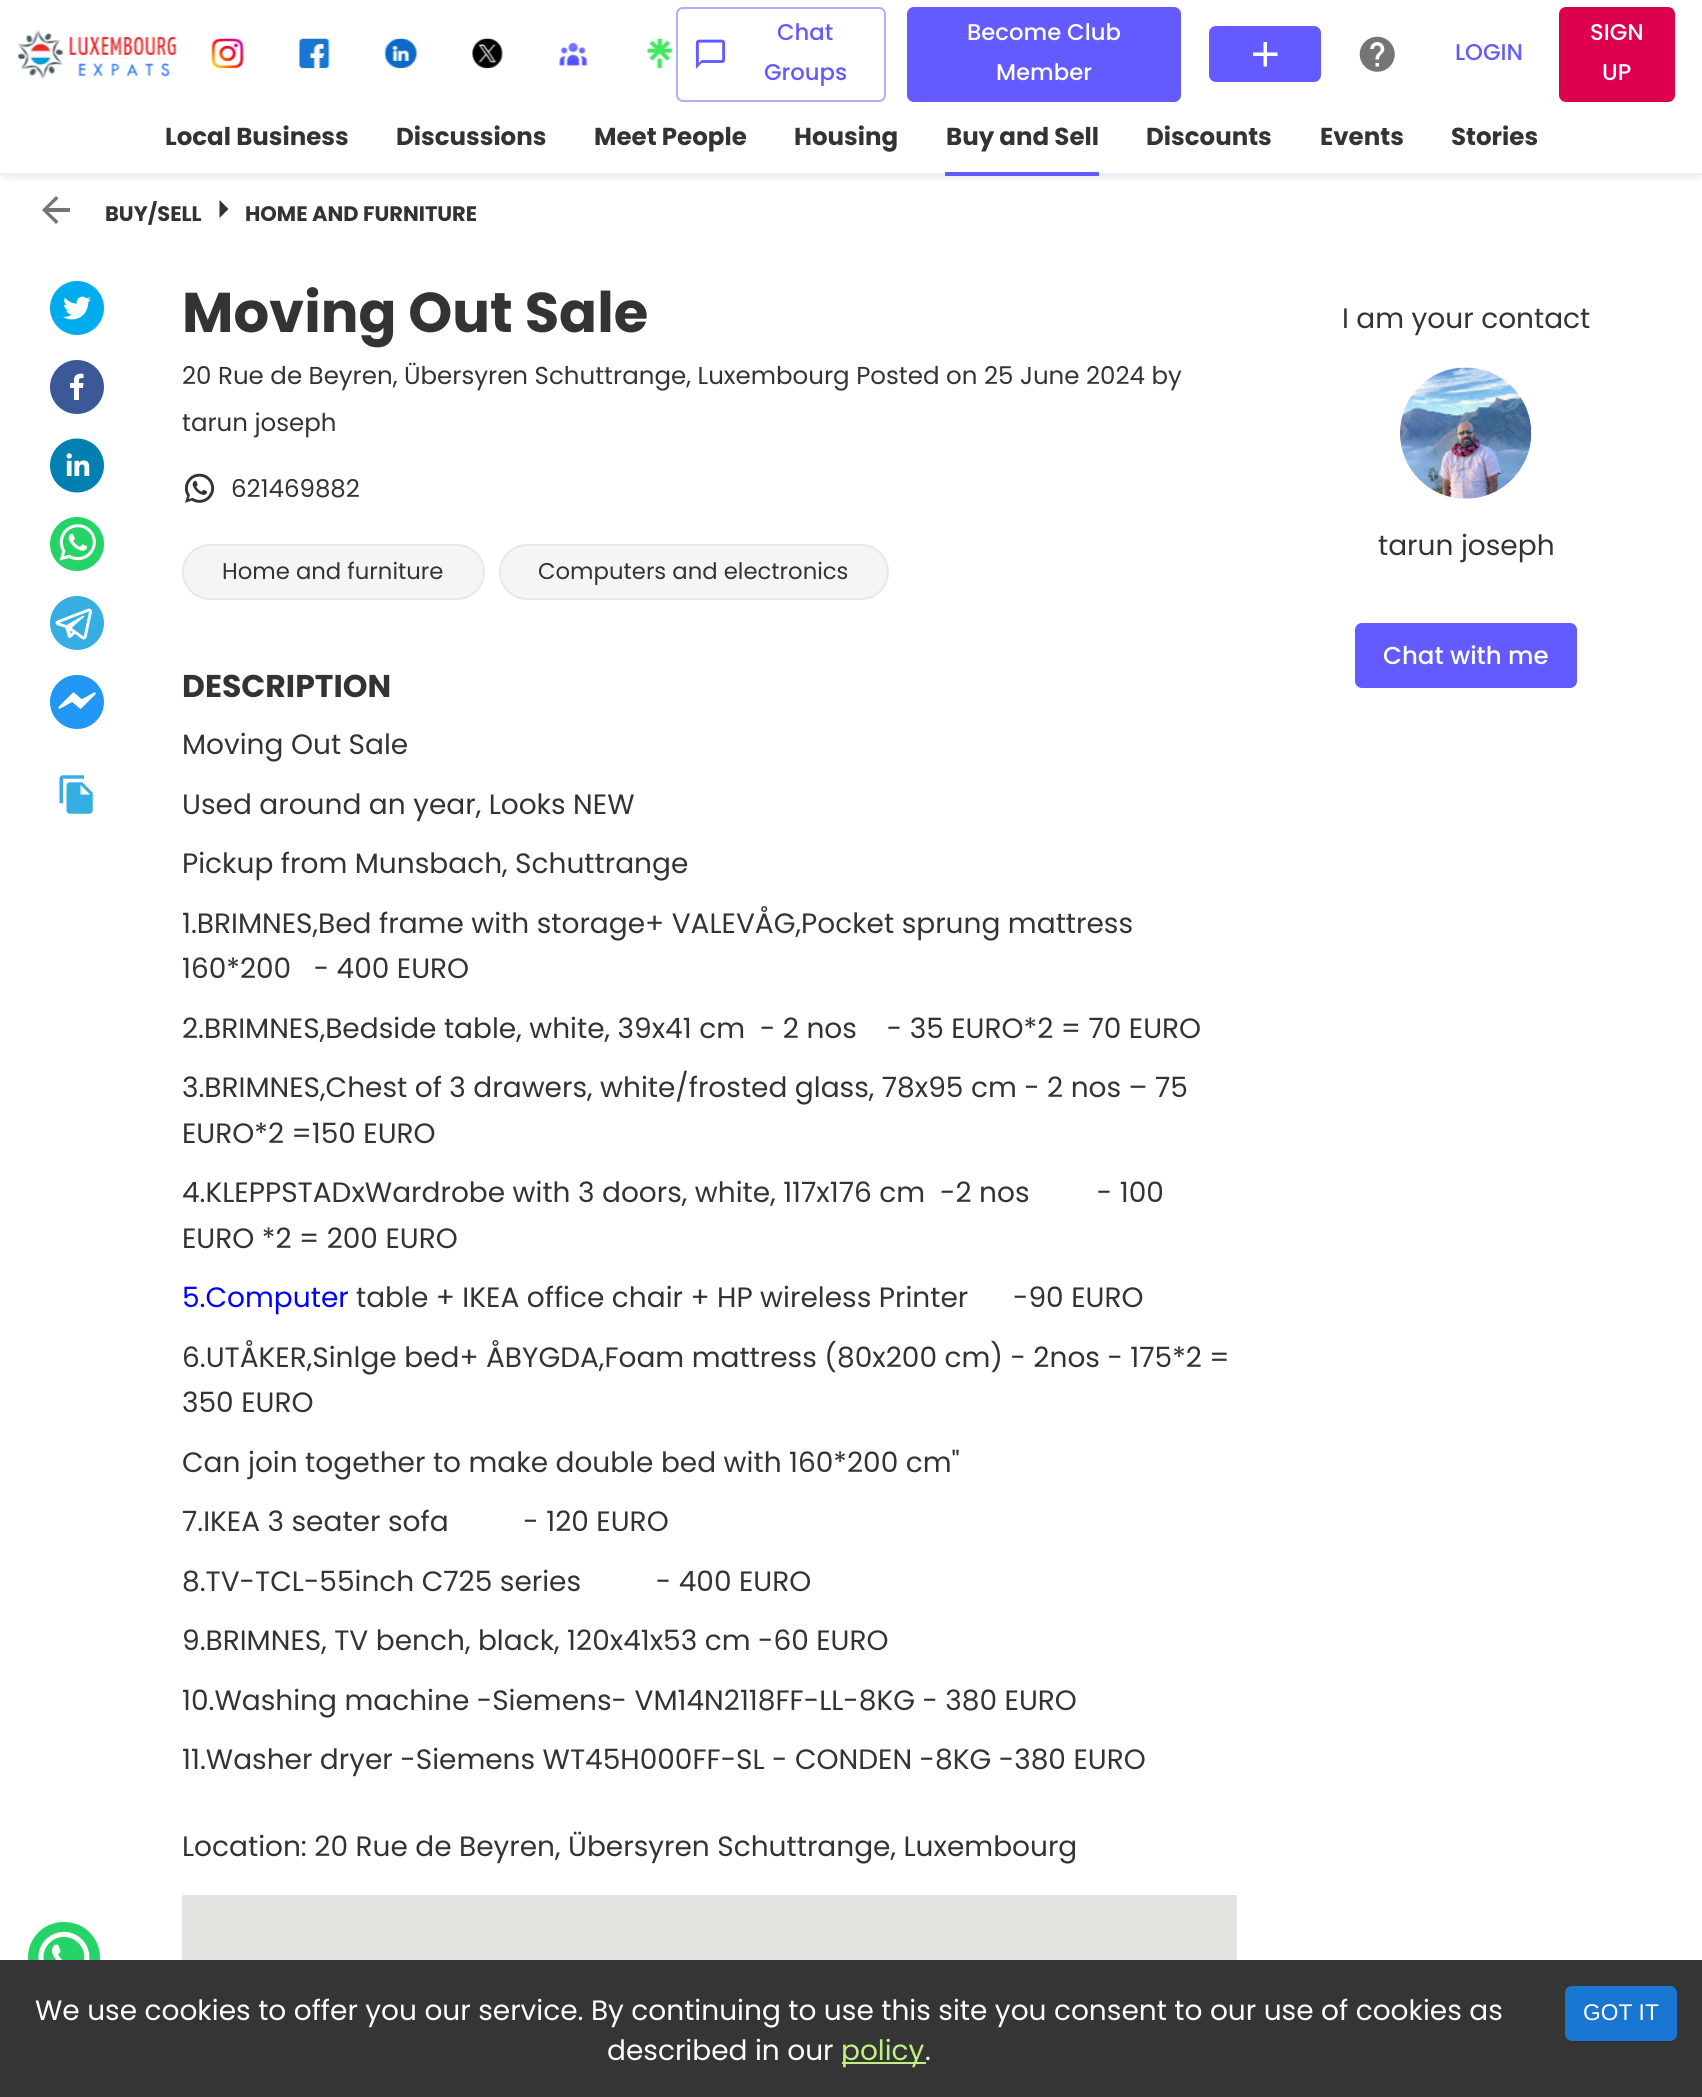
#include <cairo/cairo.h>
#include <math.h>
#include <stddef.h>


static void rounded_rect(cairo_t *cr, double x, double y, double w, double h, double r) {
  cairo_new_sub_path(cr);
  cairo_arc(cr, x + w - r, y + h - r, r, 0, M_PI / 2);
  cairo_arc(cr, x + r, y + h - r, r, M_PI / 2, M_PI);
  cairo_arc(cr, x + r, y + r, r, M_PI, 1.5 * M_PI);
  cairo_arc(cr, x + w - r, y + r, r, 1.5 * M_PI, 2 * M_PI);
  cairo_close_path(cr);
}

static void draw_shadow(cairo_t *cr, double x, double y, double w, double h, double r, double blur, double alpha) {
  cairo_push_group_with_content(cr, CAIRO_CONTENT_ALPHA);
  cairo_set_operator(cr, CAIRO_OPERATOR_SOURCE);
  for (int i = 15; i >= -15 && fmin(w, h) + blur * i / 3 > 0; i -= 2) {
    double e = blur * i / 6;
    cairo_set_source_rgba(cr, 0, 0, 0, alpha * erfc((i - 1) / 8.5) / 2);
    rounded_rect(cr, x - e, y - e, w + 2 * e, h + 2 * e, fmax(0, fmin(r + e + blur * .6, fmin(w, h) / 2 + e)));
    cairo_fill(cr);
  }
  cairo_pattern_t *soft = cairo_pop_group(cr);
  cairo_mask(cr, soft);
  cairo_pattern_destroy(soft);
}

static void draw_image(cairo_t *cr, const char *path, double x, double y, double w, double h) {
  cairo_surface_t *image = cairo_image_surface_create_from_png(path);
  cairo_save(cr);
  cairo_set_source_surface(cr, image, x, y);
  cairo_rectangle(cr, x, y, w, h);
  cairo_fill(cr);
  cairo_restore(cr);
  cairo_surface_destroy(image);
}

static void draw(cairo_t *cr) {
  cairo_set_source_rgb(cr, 1, 1, 1);
  cairo_paint(cr);
  draw_image(cr, "images/1.png", 18, 30, 159, 49);
  draw_image(cr, "images/2.png", 211, 38, 33, 31);
  draw_image(cr, "images/3.png", 298, 38, 32, 31);
  draw_image(cr, "images/4.png", 384, 38, 33, 31);
  draw_image(cr, "images/5.png", 472, 38, 31, 31);
  draw_image(cr, "images/6.png", 558, 42, 30, 24);
  draw_image(cr, "images/7.png", 647, 38, 26, 31);
  rounded_rect(cr, 677, 8, 208, 93, 6);
  cairo_set_source_rgb(cr, 177 / 255.0, 173 / 255.0, 1);
  cairo_stroke(cr);
  draw_image(cr, "images/8.png", 695, 39, 31, 30);
  cairo_set_source_rgb(cr, 99 / 255.0, 91 / 255.0, 1);
  rounded_rect(cr, 907, 7, 274, 95, 7);
  cairo_fill(cr);
  rounded_rect(cr, 1209, 26, 112, 56, 7);
  cairo_fill(cr);
  draw_image(cr, "images/9.png", 1253, 42, 25, 25);
  draw_image(cr, "images/10.png", 1359, 36, 36, 36);
  cairo_set_source_rgb(cr, 220 / 255.0, 0, 78 / 255.0);
  rounded_rect(cr, 1559, 7, 116, 95, 7);
  cairo_fill(cr);
  cairo_save(cr);
  cairo_rectangle(cr, 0, 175, 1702, 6);
  cairo_clip(cr);
  cairo_set_source_rgb(cr, 0, 106 / 255.0, 194 / 255.0);
  draw_shadow(cr, 4, 130, 1695, 45, 0, 5, 0.2);
  cairo_restore(cr);
  cairo_set_source_rgb(cr, 235 / 255.0, 240 / 255.0, 246 / 255.0);
  cairo_rectangle(cr, 0, 173, 1702, 2);
  cairo_fill(cr);
  cairo_set_source_rgb(cr, 99 / 255.0, 91 / 255.0, 1);
  cairo_rectangle(cr, 945, 172, 154, 4);
  cairo_fill(cr);
  cairo_set_source_rgb(cr, 117 / 255.0, 117 / 255.0, 117 / 255.0);
  cairo_new_path(cr);
  cairo_move_to(cr, 70, 208);
  cairo_line_to(cr, 48.5, 208);
  cairo_line_to(cr, 58.5, 198.5);
  cairo_line_to(cr, 56, 196);
  cairo_line_to(cr, 42, 210);
  cairo_line_to(cr, 56, 224);
  cairo_line_to(cr, 58.5, 221.5);
  cairo_line_to(cr, 48.5, 212);
  cairo_line_to(cr, 70, 212);
  cairo_close_path(cr);
  cairo_fill(cr);
  cairo_set_source_rgb(cr, 51 / 255.0, 51 / 255.0, 51 / 255.0);
  cairo_new_path(cr);
  cairo_move_to(cr, 219.5, 218);
  cairo_line_to(cr, 228.5, 209);
  cairo_line_to(cr, 219.5, 200);
  cairo_close_path(cr);
  cairo_fill(cr);
  draw_image(cr, "images/11.png", 50, 281, 54, 54);
  cairo_set_source_rgb(cr, 59 / 255.0, 89 / 255.0, 152 / 255.0);
  cairo_arc(cr, 77, 387, 27, 0, 2 * M_PI);
  cairo_fill(cr);
  cairo_set_source_rgb(cr, 1, 1, 1);
  cairo_new_path(cr);
  cairo_move_to(cr, 79, 400);
  cairo_line_to(cr, 79, 388);
  cairo_line_to(cr, 83, 388);
  cairo_line_to(cr, 83.5, 383);
  cairo_line_to(cr, 79, 383);
  cairo_curve_to(cr, 79, 378.5, 78.5, 378, 83.5, 378);
  cairo_line_to(cr, 83.5, 374);
  cairo_curve_to(cr, 79.5, 373, 75, 374, 74, 378.5);
  cairo_line_to(cr, 74, 383);
  cairo_line_to(cr, 70, 383);
  cairo_line_to(cr, 70, 388);
  cairo_line_to(cr, 74, 388);
  cairo_line_to(cr, 74, 400);
  cairo_close_path(cr);
  cairo_fill(cr);
  draw_image(cr, "images/12.png", 50, 438, 54, 55);
  draw_image(cr, "images/13.png", 50, 517, 54, 54);
  draw_image(cr, "images/14.png", 50, 596, 54, 54);
  draw_image(cr, "images/15.png", 50, 675, 54, 54);
  draw_image(cr, "images/16.png", 59, 775, 34, 39);
  draw_image(cr, "images/17.png", 184, 473, 31, 30);
  cairo_set_source_rgb(cr, 245 / 255.0, 245 / 255.0, 245 / 255.0);
  rounded_rect(cr, 182, 544, 303, 56, 28);
  cairo_fill(cr);
  rounded_rect(cr, 183, 545, 301, 54, 27);
  cairo_set_source_rgba(cr, 51 / 255.0, 51 / 255.0, 51 / 255.0, 0.07);
  cairo_stroke(cr);
  cairo_set_source_rgb(cr, 245 / 255.0, 245 / 255.0, 245 / 255.0);
  rounded_rect(cr, 499, 544, 390, 56, 28);
  cairo_fill(cr);
  rounded_rect(cr, 500, 545, 388, 54, 27);
  cairo_set_source_rgba(cr, 51 / 255.0, 51 / 255.0, 51 / 255.0, 0.07);
  cairo_stroke(cr);
  cairo_set_source_rgb(cr, 229 / 255.0, 227 / 255.0, 223 / 255.0);
  cairo_rectangle(cr, 182, 1895, 1055, 65);
  cairo_fill(cr);
  draw_image(cr, "images/18.png", 1400, 367, 132, 132);
  cairo_set_source_rgb(cr, 99 / 255.0, 91 / 255.0, 1);
  rounded_rect(cr, 1355, 623, 222, 65, 7);
  cairo_fill(cr);
  cairo_set_source_rgb(cr, 37 / 255.0, 211 / 255.0, 102 / 255.0);
  rounded_rect(cr, 28, 1922, 72, 71, 35.5);
  cairo_fill(cr);
  draw_image(cr, "images/19.png", 38, 1931, 52, 29);
  cairo_set_source_rgb(cr, 53 / 255.0, 53 / 255.0, 53 / 255.0);
  cairo_rectangle(cr, 0, 1960, 1702, 137);
  cairo_fill(cr);
  cairo_set_source_rgb(cr, 192 / 255.0, 241 / 255.0, 128 / 255.0);
  cairo_rectangle(cr, 842, 2062, 84, 2);
  cairo_fill(cr);
  cairo_set_source_rgb(cr, 0, 0, 0);
  draw_shadow(cr, 1568, 1995, 105, 47, 4, 1, 0.2);
  cairo_set_source_rgb(cr, 25 / 255.0, 118 / 255.0, 210 / 255.0);
  rounded_rect(cr, 1565, 1986, 112, 55, 7);
  cairo_fill(cr);
  cairo_select_font_face(cr, "Poppins Medium", CAIRO_FONT_SLANT_NORMAL, CAIRO_FONT_WEIGHT_NORMAL);
  cairo_set_font_size(cr, 22.75);
  cairo_set_source_rgb(cr, 99 / 255.0, 91 / 255.0, 1);
  cairo_move_to(cr, 777, 40);
  cairo_show_text(cr, "Chat");
  cairo_move_to(cr, 764, 80);
  cairo_show_text(cr, "Groups");
  cairo_set_source_rgb(cr, 1, 1, 1);
  cairo_move_to(cr, 967, 40);
  cairo_show_text(cr, "Become Club");
  cairo_move_to(cr, 996, 80);
  cairo_show_text(cr, "Member");
  cairo_set_source_rgb(cr, 99 / 255.0, 91 / 255.0, 1);
  cairo_move_to(cr, 1455, 60);
  cairo_show_text(cr, "LOGIN");
  cairo_set_source_rgb(cr, 1, 1, 1);
  cairo_move_to(cr, 1590, 40);
  cairo_show_text(cr, "SIGN");
  cairo_move_to(cr, 1602, 80);
  cairo_show_text(cr, "UP");
  cairo_select_font_face(cr, "Poppins", CAIRO_FONT_SLANT_NORMAL, CAIRO_FONT_WEIGHT_BOLD);
  cairo_set_font_size(cr, 24.5);
  cairo_set_source_rgb(cr, 51 / 255.0, 51 / 255.0, 51 / 255.0);
  cairo_move_to(cr, 165, 145);
  cairo_show_text(cr, "Local Business");
  cairo_move_to(cr, 396, 145);
  cairo_show_text(cr, "Discussions");
  cairo_move_to(cr, 594, 145);
  cairo_show_text(cr, "Meet People");
  cairo_move_to(cr, 794, 145);
  cairo_show_text(cr, "Housing");
  cairo_move_to(cr, 946, 145);
  cairo_show_text(cr, "Buy and Sell");
  cairo_move_to(cr, 1146, 145);
  cairo_show_text(cr, "Discounts");
  cairo_move_to(cr, 1320, 145);
  cairo_show_text(cr, "Events");
  cairo_move_to(cr, 1451, 145);
  cairo_show_text(cr, "Stories");
  cairo_set_font_size(cr, 21);
  cairo_move_to(cr, 105, 221);
  cairo_show_text(cr, "BUY/SELL");
  cairo_move_to(cr, 245, 221);
  cairo_show_text(cr, "HOME AND FURNITURE");
  cairo_set_font_size(cr, 56);
  cairo_move_to(cr, 182, 332);
  cairo_show_text(cr, "Moving Out Sale");
  cairo_select_font_face(cr, "Poppins", CAIRO_FONT_SLANT_NORMAL, CAIRO_FONT_WEIGHT_NORMAL);
  cairo_set_font_size(cr, 24.5);
  cairo_move_to(cr, 182, 384);
  cairo_show_text(cr, "20 Rue de Beyren, Übersyren Schuttrange, Luxembourg Posted on 25 June 2024 by");
  cairo_move_to(cr, 182, 431);
  cairo_show_text(cr, "tarun joseph");
  cairo_move_to(cr, 231, 497);
  cairo_show_text(cr, "621469882");
  cairo_set_font_size(cr, 22.75);
  cairo_move_to(cr, 222, 579);
  cairo_show_text(cr, "Home and furniture");
  cairo_move_to(cr, 538, 579);
  cairo_show_text(cr, "Computers and electronics");
  cairo_select_font_face(cr, "Poppins", CAIRO_FONT_SLANT_NORMAL, CAIRO_FONT_WEIGHT_BOLD);
  cairo_set_font_size(cr, 31.5);
  cairo_move_to(cr, 182, 697);
  cairo_show_text(cr, "DESCRIPTION");
  cairo_select_font_face(cr, "Poppins", CAIRO_FONT_SLANT_NORMAL, CAIRO_FONT_WEIGHT_NORMAL);
  cairo_set_font_size(cr, 28);
  cairo_move_to(cr, 182, 754);
  cairo_show_text(cr, "Moving Out Sale");
  cairo_move_to(cr, 182, 814);
  cairo_show_text(cr, "Used around an year, Looks NEW");
  cairo_move_to(cr, 182, 873);
  cairo_show_text(cr, "Pickup from Munsbach, Schuttrange");
  cairo_move_to(cr, 182, 933);
  cairo_show_text(cr, "1.BRIMNES,Bed frame with storage+ VALEVÅG,Pocket sprung mattress");
  cairo_move_to(cr, 182, 978);
  cairo_show_text(cr, "160*200   - 400 EURO");
  cairo_move_to(cr, 182, 1038);
  cairo_show_text(cr, "2.BRIMNES,Bedside table, white, 39x41 cm  - 2 nos    - 35 EURO*2 = 70 EURO");
  cairo_move_to(cr, 182, 1097);
  cairo_show_text(cr, "3.BRIMNES,Chest of 3 drawers, white/frosted glass, 78x95 cm - 2 nos – 75");
  cairo_move_to(cr, 182, 1143);
  cairo_show_text(cr, "EURO*2 =150 EURO");
  cairo_move_to(cr, 182, 1202);
  cairo_show_text(cr, "4.KLEPPSTADxWardrobe with 3 doors, white, 117x176 cm  -2 nos         - 100");
  cairo_move_to(cr, 182, 1248);
  cairo_show_text(cr, "EURO *2 = 200 EURO");
  cairo_set_source_rgb(cr, 0, 0, 1);
  cairo_move_to(cr, 182, 1307);
  cairo_show_text(cr, "5.Computer");
  cairo_set_source_rgb(cr, 51 / 255.0, 51 / 255.0, 51 / 255.0);
  cairo_move_to(cr, 356, 1307);
  cairo_show_text(cr, "table + IKEA office chair + HP wireless Printer      -90 EURO");
  cairo_move_to(cr, 182, 1367);
  cairo_show_text(cr, "6.UTÅKER,Sinlge bed+ ÅBYGDA,Foam mattress (80x200 cm) - 2nos - 175*2 =");
  cairo_move_to(cr, 182, 1412);
  cairo_show_text(cr, "350 EURO");
  cairo_move_to(cr, 182, 1472);
  cairo_show_text(cr, "Can join together to make double bed with 160*200 cm\"");
  cairo_move_to(cr, 182, 1531);
  cairo_show_text(cr, "7.IKEA 3 seater sofa          - 120 EURO");
  cairo_move_to(cr, 182, 1591);
  cairo_show_text(cr, "8.TV-TCL-55inch C725 series          - 400 EURO");
  cairo_move_to(cr, 182, 1650);
  cairo_show_text(cr, "9.BRIMNES, TV bench, black, 120x41x53 cm -60 EURO");
  cairo_move_to(cr, 182, 1710);
  cairo_show_text(cr, "10.Washing machine -Siemens- VM14N2118FF-LL-8KG - 380 EURO");
  cairo_move_to(cr, 182, 1769);
  cairo_show_text(cr, "11.Washer dryer -Siemens WT45H000FF-SL - CONDEN -8KG -380 EURO");
  cairo_move_to(cr, 182, 1856);
  cairo_show_text(cr, "Location: 20 Rue de Beyren, Übersyren Schuttrange, Luxembourg");
  cairo_move_to(cr, 1342, 328);
  cairo_show_text(cr, "I am your contact");
  cairo_move_to(cr, 1378, 555);
  cairo_show_text(cr, "tarun joseph");
  cairo_select_font_face(cr, "Poppins Medium", CAIRO_FONT_SLANT_NORMAL, CAIRO_FONT_WEIGHT_NORMAL);
  cairo_set_font_size(cr, 24.5);
  cairo_set_source_rgb(cr, 1, 1, 1);
  cairo_move_to(cr, 1383, 664);
  cairo_show_text(cr, "Chat with me");
  cairo_select_font_face(cr, "Poppins", CAIRO_FONT_SLANT_NORMAL, CAIRO_FONT_WEIGHT_NORMAL);
  cairo_set_font_size(cr, 28);
  cairo_move_to(cr, 35, 2020);
  cairo_show_text(cr, "We use cookies to offer you our service. By continuing to use this site you consent to our use of cookies as");
  cairo_move_to(cr, 607, 2060);
  cairo_show_text(cr, "described in our");
  cairo_set_source_rgb(cr, 192 / 255.0, 241 / 255.0, 128 / 255.0);
  cairo_move_to(cr, 841, 2060);
  cairo_show_text(cr, "policy");
  cairo_set_source_rgb(cr, 1, 1, 1);
  cairo_move_to(cr, 925, 2060);
  cairo_show_text(cr, ".");
  cairo_select_font_face(cr, "Liberation Sans", CAIRO_FONT_SLANT_NORMAL, CAIRO_FONT_WEIGHT_NORMAL);
  cairo_set_font_size(cr, 22.75);
  cairo_move_to(cr, 1583, 2020);
  cairo_show_text(cr, "GOT IT");
}

int main(void) {
  cairo_surface_t *surface = cairo_image_surface_create(CAIRO_FORMAT_RGB24, 1702, 2097);
  cairo_t *cr = cairo_create(surface);
  cairo_font_options_t *options = cairo_font_options_create();
  cairo_font_options_set_hint_metrics(options, CAIRO_HINT_METRICS_OFF);
  cairo_font_options_set_hint_style(options, CAIRO_HINT_STYLE_NONE);
  cairo_set_font_options(cr, options);
  cairo_set_miter_limit(cr, 4);
  draw(cr);
  cairo_surface_write_to_png(surface, "out.png");
  cairo_font_options_destroy(options);
  cairo_destroy(cr);
  cairo_surface_destroy(surface);
  return 0;
}
